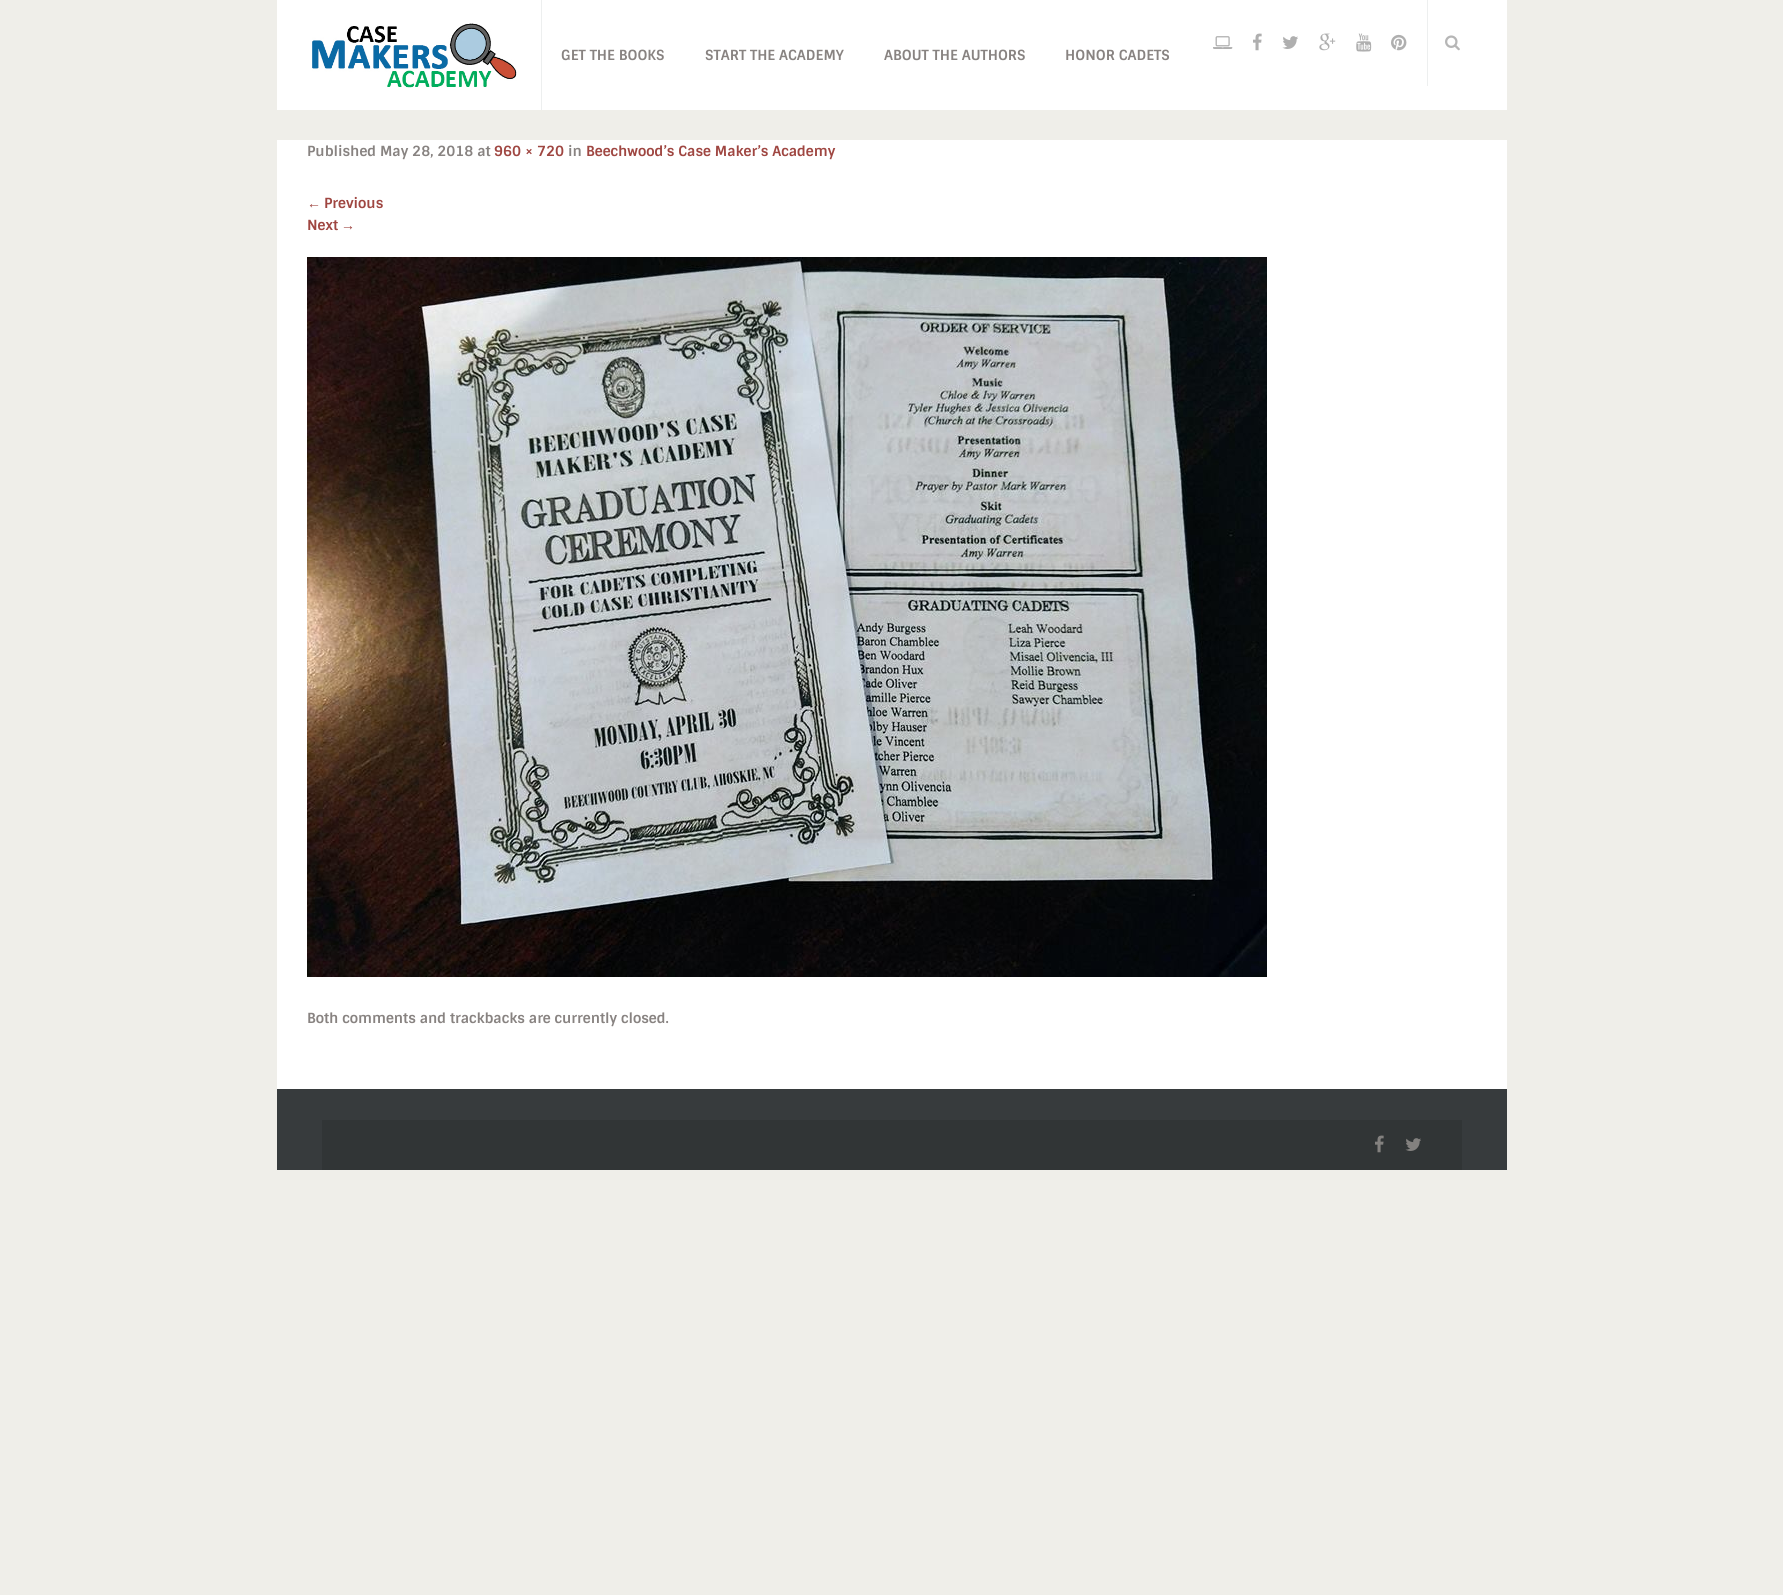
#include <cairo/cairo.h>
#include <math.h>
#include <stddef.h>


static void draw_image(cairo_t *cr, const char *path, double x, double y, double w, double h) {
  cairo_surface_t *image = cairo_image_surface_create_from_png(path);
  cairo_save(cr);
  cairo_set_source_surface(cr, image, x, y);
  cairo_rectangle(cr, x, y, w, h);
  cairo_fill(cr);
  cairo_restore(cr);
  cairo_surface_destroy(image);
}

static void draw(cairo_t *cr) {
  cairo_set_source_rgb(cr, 239 / 255.0, 238 / 255.0, 233 / 255.0);
  cairo_paint(cr);
  cairo_set_source_rgb(cr, 1, 1, 1);
  cairo_rectangle(cr, 277, 0, 1230, 110);
  cairo_fill(cr);
  cairo_set_source_rgb(cr, 237 / 255.0, 239 / 255.0, 239 / 255.0);
  cairo_rectangle(cr, 541, 0, 1, 110);
  cairo_fill(cr);
  draw_image(cr, "images/1.png", 312, 23, 205, 65);
  draw_image(cr, "images/2.png", 1213, 36, 20, 13);
  draw_image(cr, "images/3.png", 1253, 33, 9, 18);
  draw_image(cr, "images/4.png", 1282, 36, 16, 13);
  draw_image(cr, "images/5.png", 1319, 33, 17, 18);
  draw_image(cr, "images/6.png", 1356, 33, 16, 19);
  draw_image(cr, "images/7.png", 1391, 34, 16, 17);
  cairo_rectangle(cr, 1427, 0, 1, 86);
  cairo_fill(cr);
  draw_image(cr, "images/8.png", 1445, 35, 15, 16);
  cairo_set_source_rgb(cr, 1, 1, 1);
  cairo_rectangle(cr, 277, 140, 1230, 949);
  cairo_fill(cr);
  draw_image(cr, "images/9.png", 307, 257, 960, 720);
  cairo_set_source_rgb(cr, 55 / 255.0, 59 / 255.0, 61 / 255.0);
  cairo_rectangle(cr, 277, 1089, 1230, 81);
  cairo_fill(cr);
  cairo_set_source_rgb(cr, 49 / 255.0, 53 / 255.0, 54 / 255.0);
  cairo_rectangle(cr, 322, 1120, 1140, 50);
  cairo_fill(cr);
  draw_image(cr, "images/10.png", 1375, 1135, 9, 18);
  draw_image(cr, "images/11.png", 1405, 1138, 16, 13);
  cairo_select_font_face(cr, "Sintony", CAIRO_FONT_SLANT_NORMAL, CAIRO_FONT_WEIGHT_BOLD);
  cairo_set_font_size(cr, 14);
  cairo_set_source_rgb(cr, 136 / 255.0, 131 / 255.0, 129 / 255.0);
  cairo_move_to(cr, 561, 60);
  cairo_show_text(cr, "GET THE BOOKS");
  cairo_move_to(cr, 705, 60);
  cairo_show_text(cr, "START THE ACADEMY");
  cairo_move_to(cr, 884, 60);
  cairo_show_text(cr, "ABOUT THE AUTHORS");
  cairo_move_to(cr, 1065, 60);
  cairo_show_text(cr, "HONOR CADETS");
  cairo_move_to(cr, 307, 156);
  cairo_show_text(cr, "Published May 28, 2018 at");
  cairo_set_source_rgb(cr, 159 / 255.0, 70 / 255.0, 65 / 255.0);
  cairo_move_to(cr, 494, 156);
  cairo_show_text(cr, "960 × 720");
  cairo_set_source_rgb(cr, 136 / 255.0, 131 / 255.0, 129 / 255.0);
  cairo_move_to(cr, 568, 156);
  cairo_show_text(cr, "in");
  cairo_set_source_rgb(cr, 159 / 255.0, 70 / 255.0, 65 / 255.0);
  cairo_move_to(cr, 586, 156);
  cairo_show_text(cr, "Beechwood’s Case Maker’s Academy");
  cairo_select_font_face(cr, "Liberation Serif", CAIRO_FONT_SLANT_NORMAL, CAIRO_FONT_WEIGHT_NORMAL);
  cairo_move_to(cr, 307, 208);
  cairo_show_text(cr, "←");
  cairo_select_font_face(cr, "Sintony", CAIRO_FONT_SLANT_NORMAL, CAIRO_FONT_WEIGHT_BOLD);
  cairo_move_to(cr, 324, 208);
  cairo_show_text(cr, "Previous");
  cairo_move_to(cr, 307, 230);
  cairo_show_text(cr, "Next");
  cairo_select_font_face(cr, "Liberation Serif", CAIRO_FONT_SLANT_NORMAL, CAIRO_FONT_WEIGHT_NORMAL);
  cairo_move_to(cr, 341, 230);
  cairo_show_text(cr, "→");
  cairo_select_font_face(cr, "Sintony", CAIRO_FONT_SLANT_NORMAL, CAIRO_FONT_WEIGHT_BOLD);
  cairo_set_source_rgb(cr, 136 / 255.0, 131 / 255.0, 129 / 255.0);
  cairo_move_to(cr, 307, 1023);
  cairo_show_text(cr, "Both comments and trackbacks are currently closed.");
}

int main(void) {
  cairo_surface_t *surface = cairo_image_surface_create(CAIRO_FORMAT_RGB24, 1783, 1595);
  cairo_t *cr = cairo_create(surface);
  cairo_font_options_t *options = cairo_font_options_create();
  cairo_font_options_set_hint_metrics(options, CAIRO_HINT_METRICS_OFF);
  cairo_font_options_set_hint_style(options, CAIRO_HINT_STYLE_NONE);
  cairo_set_font_options(cr, options);
  cairo_set_miter_limit(cr, 4);
  draw(cr);
  cairo_surface_write_to_png(surface, "out.png");
  cairo_font_options_destroy(options);
  cairo_destroy(cr);
  cairo_surface_destroy(surface);
  return 0;
}
